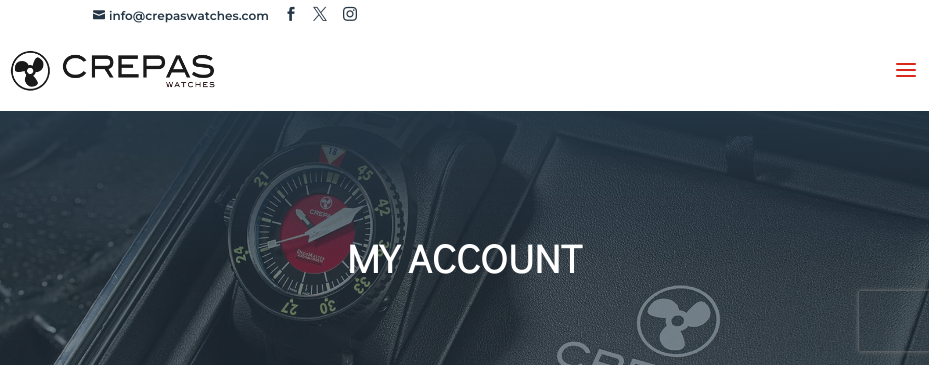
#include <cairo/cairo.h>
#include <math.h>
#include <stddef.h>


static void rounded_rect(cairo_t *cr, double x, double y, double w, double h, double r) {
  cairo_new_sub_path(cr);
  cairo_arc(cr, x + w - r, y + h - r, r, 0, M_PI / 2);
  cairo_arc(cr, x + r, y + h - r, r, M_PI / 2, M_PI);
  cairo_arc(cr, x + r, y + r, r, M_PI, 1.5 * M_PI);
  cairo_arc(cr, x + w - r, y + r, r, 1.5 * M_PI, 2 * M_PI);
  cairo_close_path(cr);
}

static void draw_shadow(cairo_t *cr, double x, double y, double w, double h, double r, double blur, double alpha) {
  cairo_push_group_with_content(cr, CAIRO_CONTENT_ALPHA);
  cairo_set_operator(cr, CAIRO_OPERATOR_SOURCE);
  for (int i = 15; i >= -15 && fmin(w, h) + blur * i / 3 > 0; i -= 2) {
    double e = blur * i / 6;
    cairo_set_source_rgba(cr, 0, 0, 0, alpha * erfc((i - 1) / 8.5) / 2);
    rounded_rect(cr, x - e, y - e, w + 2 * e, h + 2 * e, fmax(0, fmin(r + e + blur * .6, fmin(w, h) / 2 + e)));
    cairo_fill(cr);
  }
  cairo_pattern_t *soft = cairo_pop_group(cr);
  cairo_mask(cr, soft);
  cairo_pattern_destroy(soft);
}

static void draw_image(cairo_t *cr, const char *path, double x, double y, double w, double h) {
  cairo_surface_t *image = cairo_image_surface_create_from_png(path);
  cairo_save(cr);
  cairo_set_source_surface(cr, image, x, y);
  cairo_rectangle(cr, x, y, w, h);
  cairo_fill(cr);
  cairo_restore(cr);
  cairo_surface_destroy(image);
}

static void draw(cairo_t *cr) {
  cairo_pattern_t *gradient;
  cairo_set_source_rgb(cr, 1, 1, 1);
  cairo_paint(cr);
  draw_image(cr, "images/1.png", 93, 10, 12, 10);
  draw_image(cr, "images/2.png", 287, 6, 8, 15);
  draw_image(cr, "images/3.png", 313, 6, 14, 15);
  draw_image(cr, "images/4.png", 343, 6, 14, 15);
  draw_image(cr, "images/5.png", 10, 50, 205, 41);
  draw_image(cr, "images/6.png", 896, 63, 20, 14);
  draw_image(cr, "images/7.png", 0, 111, 929, 254);
  gradient = cairo_pattern_create_linear(465, 0, 465, 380);
  cairo_pattern_add_color_stop_rgba(gradient, 0.2, 37 / 255.0, 55 / 255.0, 70 / 255.0, 1);
  cairo_pattern_add_color_stop_rgba(gradient, 0.7, 37 / 255.0, 55 / 255.0, 70 / 255.0, 0.61);
  cairo_set_source(cr, gradient);
  cairo_pattern_destroy(gradient);
  cairo_rectangle(cr, 0, 111, 929, 254);
  cairo_fill(cr);
  cairo_save(cr);
  cairo_set_fill_rule(cr, CAIRO_FILL_RULE_EVEN_ODD);
  cairo_new_path(cr);
  cairo_move_to(cr, 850, 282);
  cairo_line_to(cr, 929, 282);
  cairo_line_to(cr, 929, 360);
  cairo_line_to(cr, 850, 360);
  cairo_close_path(cr);
  cairo_move_to(cr, 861, 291);
  cairo_line_to(cr, 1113, 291);
  cairo_curve_to(cr, 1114, 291, 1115, 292, 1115, 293);
  cairo_line_to(cr, 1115, 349);
  cairo_curve_to(cr, 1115, 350, 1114, 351, 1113, 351);
  cairo_line_to(cr, 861, 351);
  cairo_curve_to(cr, 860, 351, 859, 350, 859, 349);
  cairo_line_to(cr, 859, 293);
  cairo_curve_to(cr, 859, 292, 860, 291, 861, 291);
  cairo_close_path(cr);
  cairo_clip(cr);
  cairo_set_source_rgb(cr, 128 / 255.0, 128 / 255.0, 128 / 255.0);
  draw_shadow(cr, 859, 291, 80, 60, 2, 2.5, 1);
  cairo_restore(cr);
  cairo_select_font_face(cr, "Montserrat Thin", CAIRO_FONT_SLANT_NORMAL, CAIRO_FONT_WEIGHT_NORMAL);
  cairo_set_font_size(cr, 12);
  cairo_set_source_rgb(cr, 37 / 255.0, 55 / 255.0, 70 / 255.0);
  cairo_move_to(cr, 109, 20);
  cairo_show_text(cr, "info@crepaswatches.com");
  cairo_select_font_face(cr, "Didact Gothic", CAIRO_FONT_SLANT_NORMAL, CAIRO_FONT_WEIGHT_BOLD);
  cairo_set_font_size(cr, 40);
  cairo_set_source_rgb(cr, 1, 1, 1);
  cairo_move_to(cr, 347, 273);
  cairo_show_text(cr, "MY ACCOUNT");
}

int main(void) {
  cairo_surface_t *surface = cairo_image_surface_create(CAIRO_FORMAT_RGB24, 929, 365);
  cairo_t *cr = cairo_create(surface);
  cairo_font_options_t *options = cairo_font_options_create();
  cairo_font_options_set_hint_metrics(options, CAIRO_HINT_METRICS_OFF);
  cairo_font_options_set_hint_style(options, CAIRO_HINT_STYLE_NONE);
  cairo_set_font_options(cr, options);
  cairo_set_miter_limit(cr, 4);
  draw(cr);
  cairo_surface_write_to_png(surface, "out.png");
  cairo_font_options_destroy(options);
  cairo_destroy(cr);
  cairo_surface_destroy(surface);
  return 0;
}
